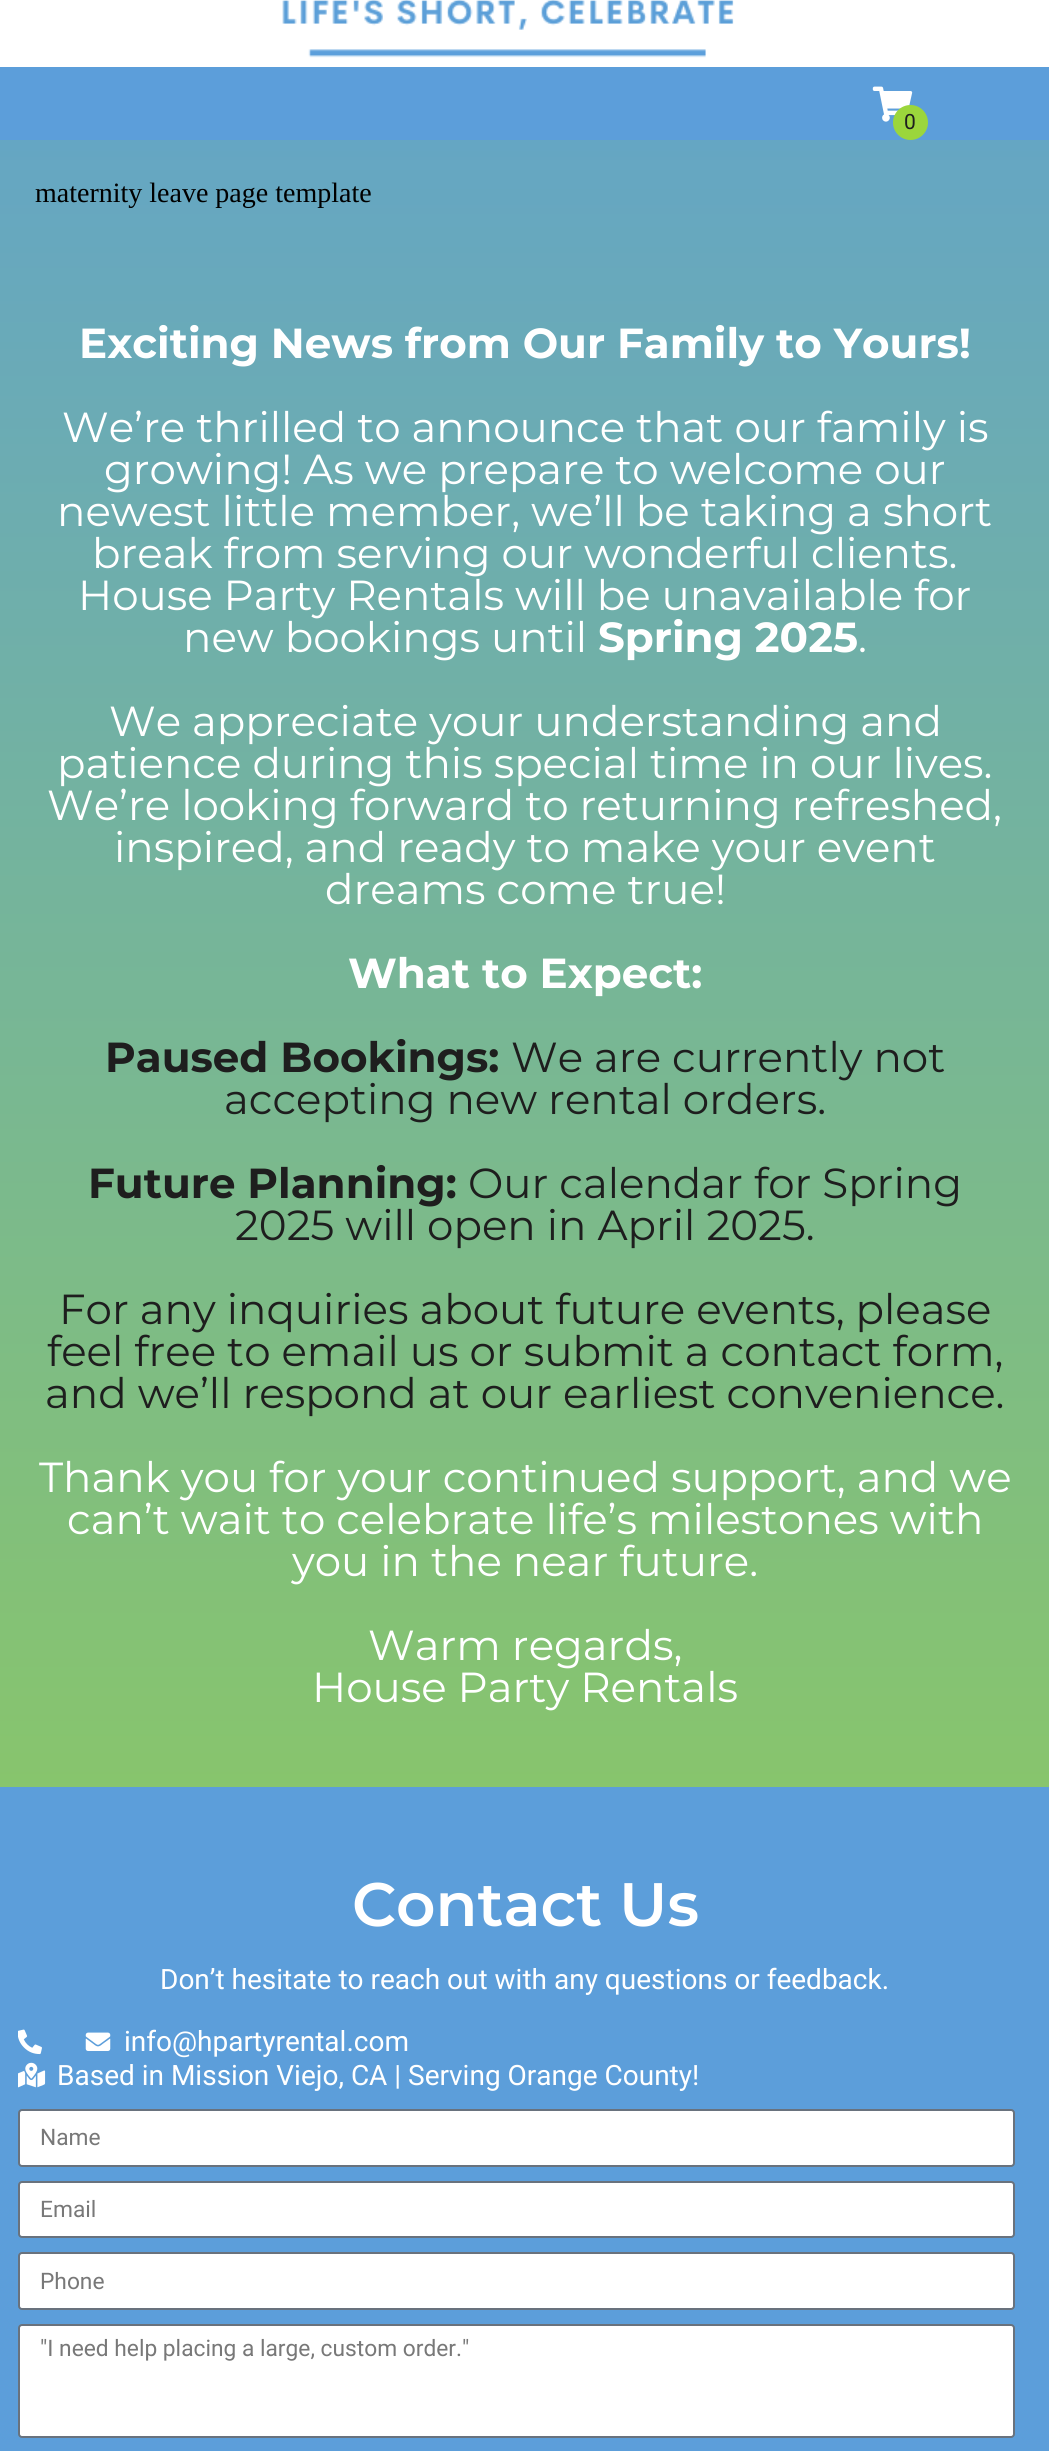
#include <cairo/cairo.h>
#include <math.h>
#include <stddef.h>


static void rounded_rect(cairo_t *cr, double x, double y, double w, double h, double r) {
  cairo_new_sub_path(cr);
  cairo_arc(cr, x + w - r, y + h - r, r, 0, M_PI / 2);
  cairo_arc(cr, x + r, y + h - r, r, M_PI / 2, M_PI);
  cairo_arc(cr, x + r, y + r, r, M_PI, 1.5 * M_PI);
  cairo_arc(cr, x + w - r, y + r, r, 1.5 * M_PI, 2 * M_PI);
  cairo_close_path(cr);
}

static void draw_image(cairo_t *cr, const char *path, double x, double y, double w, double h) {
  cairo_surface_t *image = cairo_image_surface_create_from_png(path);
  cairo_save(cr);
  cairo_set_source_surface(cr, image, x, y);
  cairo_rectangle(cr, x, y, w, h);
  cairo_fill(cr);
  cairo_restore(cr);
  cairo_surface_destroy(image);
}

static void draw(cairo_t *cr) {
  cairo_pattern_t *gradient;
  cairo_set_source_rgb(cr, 1, 1, 1);
  cairo_paint(cr);
  gradient = cairo_pattern_create_linear(525, -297, 525, 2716);
  cairo_pattern_add_color_stop_rgba(gradient, 0, 92 / 255.0, 158 / 255.0, 218 / 255.0, 1);
  cairo_pattern_add_color_stop_rgba(gradient, 1, 155 / 255.0, 214 / 255.0, 60 / 255.0, 1);
  cairo_set_source(cr, gradient);
  cairo_pattern_destroy(gradient);
  cairo_rectangle(cr, 0, 140, 1049, 1647);
  cairo_fill(cr);
  draw_image(cr, "images/1.png", 282, 0, 452, 58);
  cairo_set_source_rgb(cr, 92 / 255.0, 158 / 255.0, 218 / 255.0);
  cairo_rectangle(cr, 0, 67, 1049, 73);
  cairo_fill(cr);
  draw_image(cr, "images/2.png", 872, 86, 41, 36);
  cairo_set_source_rgb(cr, 155 / 255.0, 214 / 255.0, 60 / 255.0);
  cairo_arc(cr, 910.5, 122.5, 17.5, 0, 2 * M_PI);
  cairo_fill(cr);
  cairo_set_source_rgb(cr, 92 / 255.0, 158 / 255.0, 218 / 255.0);
  cairo_rectangle(cr, 0, 1787, 1049, 664);
  cairo_fill(cr);
  draw_image(cr, "images/3.png", 18, 2029, 24, 26);
  draw_image(cr, "images/4.png", 85, 2032, 26, 19);
  draw_image(cr, "images/5.png", 18, 2062, 28, 26);
  cairo_set_source_rgb(cr, 1, 1, 1);
  rounded_rect(cr, 19, 2110, 995, 56, 3);
  cairo_fill_preserve(cr);
  cairo_set_source_rgb(cr, 105 / 255.0, 114 / 255.0, 125 / 255.0);
  cairo_stroke(cr);
  cairo_set_source_rgb(cr, 1, 1, 1);
  rounded_rect(cr, 19, 2182, 995, 55, 3);
  cairo_fill_preserve(cr);
  cairo_set_source_rgb(cr, 105 / 255.0, 114 / 255.0, 125 / 255.0);
  cairo_stroke(cr);
  cairo_set_source_rgb(cr, 1, 1, 1);
  rounded_rect(cr, 19, 2253, 995, 56, 3);
  cairo_fill_preserve(cr);
  cairo_set_source_rgb(cr, 105 / 255.0, 114 / 255.0, 125 / 255.0);
  cairo_stroke(cr);
  cairo_set_source_rgb(cr, 1, 1, 1);
  rounded_rect(cr, 19, 2325, 995, 112, 3);
  cairo_fill_preserve(cr);
  cairo_set_source_rgb(cr, 105 / 255.0, 114 / 255.0, 125 / 255.0);
  cairo_stroke(cr);
  cairo_select_font_face(cr, "Roboto", CAIRO_FONT_SLANT_NORMAL, CAIRO_FONT_WEIGHT_NORMAL);
  cairo_set_font_size(cr, 21);
  cairo_set_source_rgb(cr, 30 / 255.0, 30 / 255.0, 30 / 255.0);
  cairo_move_to(cr, 904, 129);
  cairo_show_text(cr, "0");
  cairo_select_font_face(cr, "Liberation Serif", CAIRO_FONT_SLANT_NORMAL, CAIRO_FONT_WEIGHT_NORMAL);
  cairo_set_font_size(cr, 28);
  cairo_set_source_rgb(cr, 0, 0, 0);
  cairo_move_to(cr, 35, 202);
  cairo_show_text(cr, "maternity leave page template");
  cairo_select_font_face(cr, "Montserrat", CAIRO_FONT_SLANT_NORMAL, CAIRO_FONT_WEIGHT_BOLD);
  cairo_set_font_size(cr, 42);
  cairo_set_source_rgb(cr, 1, 1, 1);
  cairo_move_to(cr, 79, 358);
  cairo_show_text(cr, "Exciting News from Our Family to Yours!");
  cairo_select_font_face(cr, "Montserrat", CAIRO_FONT_SLANT_NORMAL, CAIRO_FONT_WEIGHT_NORMAL);
  cairo_move_to(cr, 62, 442);
  cairo_show_text(cr, "We’re thrilled to announce that our family is");
  cairo_move_to(cr, 104, 484);
  cairo_show_text(cr, "growing! As we prepare to welcome our");
  cairo_move_to(cr, 57, 526);
  cairo_show_text(cr, "newest little member, we’ll be taking a short");
  cairo_move_to(cr, 92, 568);
  cairo_show_text(cr, "break from serving our wonderful clients.");
  cairo_move_to(cr, 78, 610);
  cairo_show_text(cr, "House Party Rentals will be unavailable for");
  cairo_move_to(cr, 183, 652);
  cairo_show_text(cr, "new bookings until");
  cairo_select_font_face(cr, "Montserrat", CAIRO_FONT_SLANT_NORMAL, CAIRO_FONT_WEIGHT_BOLD);
  cairo_move_to(cr, 598, 652);
  cairo_show_text(cr, "Spring 2025");
  cairo_select_font_face(cr, "Montserrat", CAIRO_FONT_SLANT_NORMAL, CAIRO_FONT_WEIGHT_NORMAL);
  cairo_move_to(cr, 858, 652);
  cairo_show_text(cr, ".");
  cairo_move_to(cr, 109, 736);
  cairo_show_text(cr, "We appreciate your understanding and");
  cairo_move_to(cr, 57, 778);
  cairo_show_text(cr, "patience during this special time in our lives.");
  cairo_move_to(cr, 47, 820);
  cairo_show_text(cr, "We’re looking forward to returning refreshed,");
  cairo_move_to(cr, 114, 862);
  cairo_show_text(cr, "inspired, and ready to make your event");
  cairo_move_to(cr, 325, 904);
  cairo_show_text(cr, "dreams come true!");
  cairo_select_font_face(cr, "Montserrat", CAIRO_FONT_SLANT_NORMAL, CAIRO_FONT_WEIGHT_BOLD);
  cairo_move_to(cr, 348, 988);
  cairo_show_text(cr, "What to Expect:");
  cairo_set_source_rgb(cr, 30 / 255.0, 30 / 255.0, 30 / 255.0);
  cairo_move_to(cr, 105, 1072);
  cairo_show_text(cr, "Paused Bookings:");
  cairo_select_font_face(cr, "Montserrat", CAIRO_FONT_SLANT_NORMAL, CAIRO_FONT_WEIGHT_NORMAL);
  cairo_move_to(cr, 511, 1072);
  cairo_show_text(cr, "We are currently not");
  cairo_move_to(cr, 224, 1114);
  cairo_show_text(cr, "accepting new rental orders.");
  cairo_select_font_face(cr, "Montserrat", CAIRO_FONT_SLANT_NORMAL, CAIRO_FONT_WEIGHT_BOLD);
  cairo_move_to(cr, 88, 1198);
  cairo_show_text(cr, "Future Planning:");
  cairo_select_font_face(cr, "Montserrat", CAIRO_FONT_SLANT_NORMAL, CAIRO_FONT_WEIGHT_NORMAL);
  cairo_move_to(cr, 468, 1198);
  cairo_show_text(cr, "Our calendar for Spring");
  cairo_move_to(cr, 235, 1240);
  cairo_show_text(cr, "2025 will open in April 2025.");
  cairo_move_to(cr, 59, 1324);
  cairo_show_text(cr, "For any inquiries about future events, please");
  cairo_move_to(cr, 47, 1366);
  cairo_show_text(cr, "feel free to email us or submit a contact form,");
  cairo_move_to(cr, 45, 1408);
  cairo_show_text(cr, "and we’ll respond at our earliest convenience.");
  cairo_set_source_rgb(cr, 1, 1, 1);
  cairo_move_to(cr, 39, 1492);
  cairo_show_text(cr, "Thank you for your continued support, and we");
  cairo_move_to(cr, 67, 1534);
  cairo_show_text(cr, "can’t wait to celebrate life’s milestones with");
  cairo_move_to(cr, 292, 1576);
  cairo_show_text(cr, "you in the near future.");
  cairo_move_to(cr, 368, 1660);
  cairo_show_text(cr, "Warm regards,");
  cairo_move_to(cr, 312, 1702);
  cairo_show_text(cr, "House Party Rentals");
  cairo_select_font_face(cr, "Montserrat SemiBold", CAIRO_FONT_SLANT_NORMAL, CAIRO_FONT_WEIGHT_NORMAL);
  cairo_set_font_size(cr, 61.25);
  cairo_move_to(cr, 352, 1926);
  cairo_show_text(cr, "Contact Us");
  cairo_select_font_face(cr, "Roboto", CAIRO_FONT_SLANT_NORMAL, CAIRO_FONT_WEIGHT_NORMAL);
  cairo_set_font_size(cr, 28);
  cairo_move_to(cr, 160, 1989);
  cairo_show_text(cr, "Don’t hesitate to reach out with any questions or feedback.");
  cairo_move_to(cr, 124, 2051);
  cairo_show_text(cr, "info@hpartyrental.com");
  cairo_move_to(cr, 57, 2085);
  cairo_show_text(cr, "Based in Mission Viejo, CA | Serving Orange County!");
  cairo_set_font_size(cr, 22.75);
  cairo_set_source_rgb(cr, 120 / 255.0, 120 / 255.0, 120 / 255.0);
  cairo_move_to(cr, 40, 2145);
  cairo_show_text(cr, "Name");
  cairo_move_to(cr, 40, 2217);
  cairo_show_text(cr, "Email");
  cairo_move_to(cr, 40, 2289);
  cairo_show_text(cr, "Phone");
  cairo_move_to(cr, 40, 2356);
  cairo_show_text(cr, "\"I need help placing a large, custom order.\"");
}

int main(void) {
  cairo_surface_t *surface = cairo_image_surface_create(CAIRO_FORMAT_RGB24, 1049, 2451);
  cairo_t *cr = cairo_create(surface);
  cairo_font_options_t *options = cairo_font_options_create();
  cairo_font_options_set_hint_metrics(options, CAIRO_HINT_METRICS_OFF);
  cairo_font_options_set_hint_style(options, CAIRO_HINT_STYLE_NONE);
  cairo_set_font_options(cr, options);
  cairo_set_miter_limit(cr, 4);
  draw(cr);
  cairo_surface_write_to_png(surface, "out.png");
  cairo_font_options_destroy(options);
  cairo_destroy(cr);
  cairo_surface_destroy(surface);
  return 0;
}
